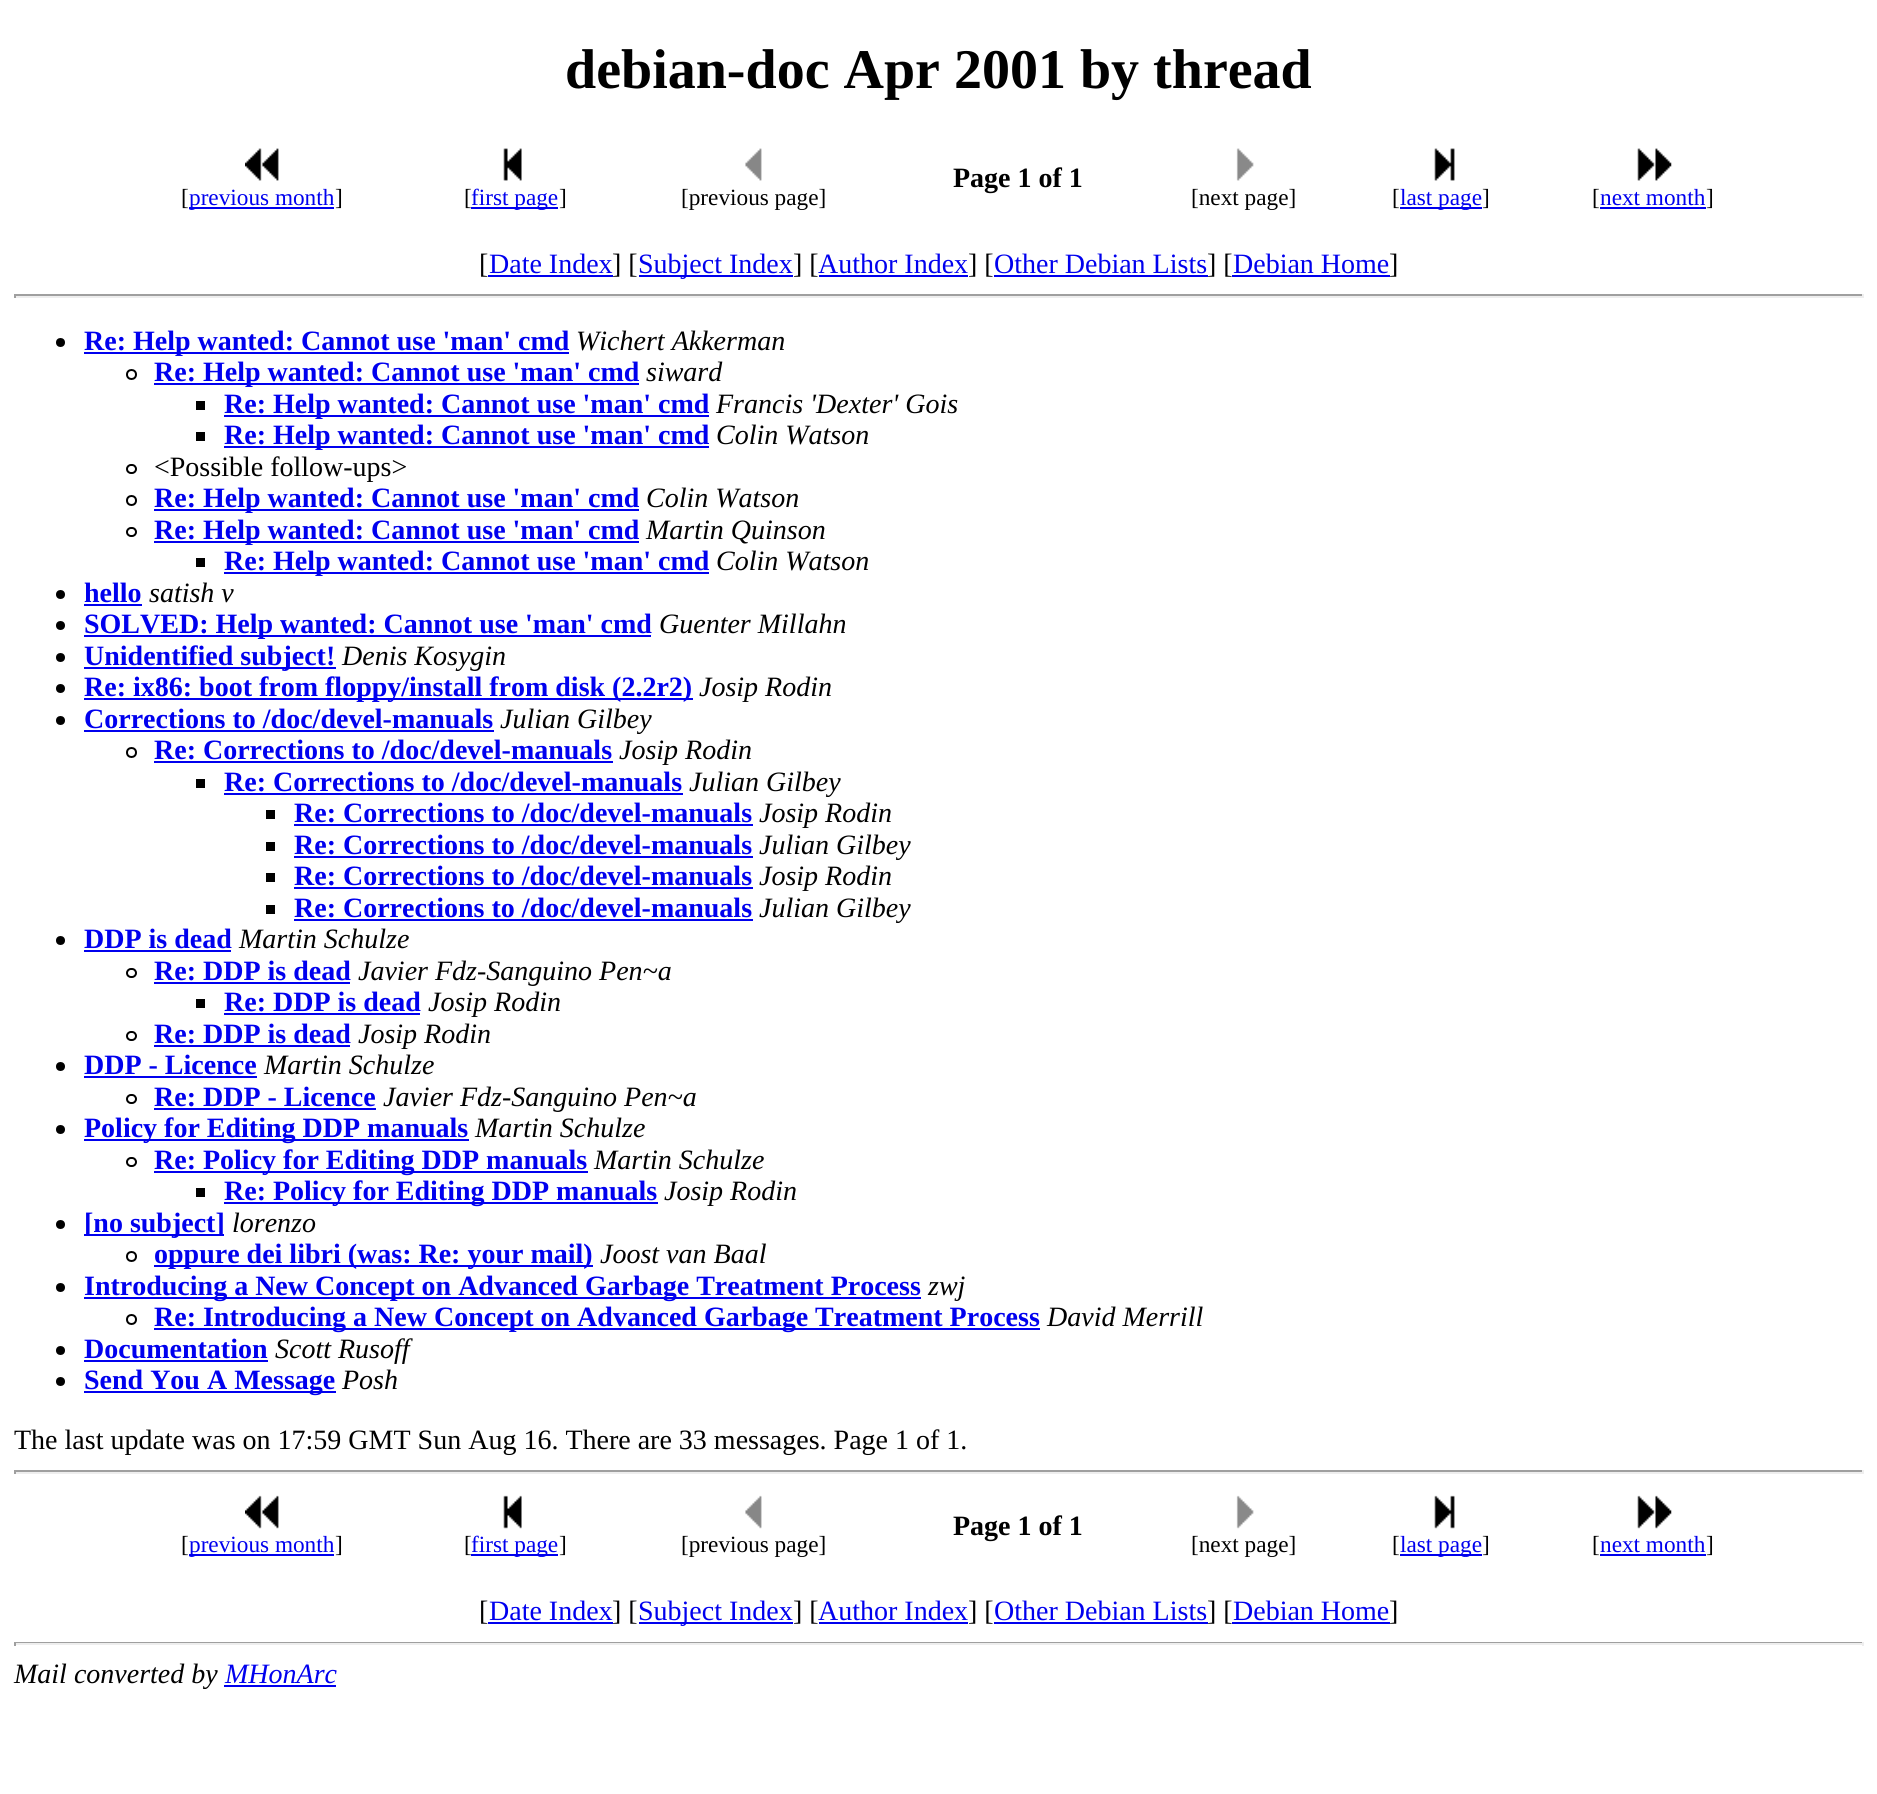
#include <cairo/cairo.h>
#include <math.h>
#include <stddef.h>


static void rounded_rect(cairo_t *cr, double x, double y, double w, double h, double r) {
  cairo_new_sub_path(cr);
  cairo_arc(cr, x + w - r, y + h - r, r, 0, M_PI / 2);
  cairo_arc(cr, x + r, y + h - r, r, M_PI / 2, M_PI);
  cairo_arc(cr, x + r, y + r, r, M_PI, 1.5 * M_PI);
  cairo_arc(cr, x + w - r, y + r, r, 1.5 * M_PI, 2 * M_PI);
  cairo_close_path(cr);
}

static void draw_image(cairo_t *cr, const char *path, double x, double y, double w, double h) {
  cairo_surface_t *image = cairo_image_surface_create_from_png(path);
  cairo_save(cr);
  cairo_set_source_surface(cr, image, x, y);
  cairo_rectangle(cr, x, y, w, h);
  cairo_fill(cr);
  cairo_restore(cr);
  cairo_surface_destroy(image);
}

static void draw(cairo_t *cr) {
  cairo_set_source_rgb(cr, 1, 1, 1);
  cairo_paint(cr);
  draw_image(cr, "images/1.png", 245, 148, 34, 33);
  cairo_set_source_rgb(cr, 0, 0, 238 / 255.0);
  cairo_rectangle(cr, 189, 207, 145, 2);
  cairo_fill(cr);
  draw_image(cr, "images/2.png", 503, 148, 19, 33);
  cairo_rectangle(cr, 471, 207, 87, 2);
  cairo_fill(cr);
  draw_image(cr, "images/3.png", 745, 148, 17, 33);
  draw_image(cr, "images/4.png", 1236, 148, 18, 33);
  draw_image(cr, "images/5.png", 1434, 148, 21, 33);
  cairo_rectangle(cr, 1400, 207, 82, 2);
  cairo_fill(cr);
  draw_image(cr, "images/6.png", 1637, 148, 35, 33);
  cairo_rectangle(cr, 1600, 207, 106, 2);
  cairo_fill(cr);
  cairo_rectangle(cr, 488, 275, 125, 2);
  cairo_fill(cr);
  cairo_rectangle(cr, 639, 275, 154, 2);
  cairo_fill(cr);
  cairo_rectangle(cr, 819, 275, 149, 2);
  cairo_fill(cr);
  cairo_rectangle(cr, 994, 275, 214, 2);
  cairo_fill(cr);
  cairo_rectangle(cr, 1232, 275, 158, 2);
  cairo_fill(cr);
  cairo_set_source_rgb(cr, 159 / 255.0, 159 / 255.0, 159 / 255.0);
  cairo_rectangle(cr, 14, 294, 1850, 2);
  cairo_fill(cr);
  cairo_set_source_rgb(cr, 238 / 255.0, 238 / 255.0, 238 / 255.0);
  cairo_rectangle(cr, 1862, 294, 2, 4);
  cairo_fill(cr);
  cairo_rectangle(cr, 14, 296, 1850, 2);
  cairo_fill(cr);
  cairo_set_source_rgb(cr, 159 / 255.0, 159 / 255.0, 159 / 255.0);
  cairo_rectangle(cr, 14, 294, 2, 4);
  cairo_fill(cr);
  cairo_set_source_rgb(cr, 0, 0, 0);
  cairo_arc(cr, 60.5, 342.5, 4.5, 0, 2 * M_PI);
  cairo_fill(cr);
  cairo_set_source_rgb(cr, 0, 0, 238 / 255.0);
  cairo_rectangle(cr, 84, 352, 485, 2);
  cairo_fill(cr);
  cairo_arc(cr, 131.5, 374.5, 4.5, 0, 2 * M_PI);
  cairo_set_source_rgb(cr, 0, 0, 0);
  cairo_stroke(cr);
  cairo_set_source_rgb(cr, 0, 0, 238 / 255.0);
  cairo_rectangle(cr, 154, 383, 485, 2);
  cairo_fill(cr);
  cairo_set_source_rgb(cr, 0, 0, 0);
  cairo_rectangle(cr, 196, 401, 9, 9);
  cairo_fill(cr);
  cairo_set_source_rgb(cr, 0, 0, 238 / 255.0);
  cairo_rectangle(cr, 224, 415, 485, 2);
  cairo_fill(cr);
  cairo_set_source_rgb(cr, 0, 0, 0);
  cairo_rectangle(cr, 196, 432, 9, 9);
  cairo_fill(cr);
  cairo_set_source_rgb(cr, 0, 0, 238 / 255.0);
  cairo_rectangle(cr, 224, 446, 485, 2);
  cairo_fill(cr);
  rounded_rect(cr, 127, 465, 9, 8, 4);
  cairo_set_source_rgb(cr, 0, 0, 0);
  cairo_stroke(cr);
  cairo_arc(cr, 131.5, 500.5, 4.5, 0, 2 * M_PI);
  cairo_stroke(cr);
  cairo_set_source_rgb(cr, 0, 0, 238 / 255.0);
  cairo_rectangle(cr, 154, 509, 485, 2);
  cairo_fill(cr);
  rounded_rect(cr, 127, 528, 9, 8, 4);
  cairo_set_source_rgb(cr, 0, 0, 0);
  cairo_stroke(cr);
  cairo_set_source_rgb(cr, 0, 0, 238 / 255.0);
  cairo_rectangle(cr, 154, 541, 485, 2);
  cairo_fill(cr);
  cairo_set_source_rgb(cr, 0, 0, 0);
  cairo_rectangle(cr, 196, 558, 9, 9);
  cairo_fill(cr);
  cairo_set_source_rgb(cr, 0, 0, 238 / 255.0);
  cairo_rectangle(cr, 224, 572, 485, 2);
  cairo_fill(cr);
  cairo_set_source_rgb(cr, 0, 0, 0);
  cairo_arc(cr, 60.5, 594.5, 4.5, 0, 2 * M_PI);
  cairo_fill(cr);
  cairo_set_source_rgb(cr, 0, 0, 238 / 255.0);
  cairo_rectangle(cr, 84, 604, 58, 2);
  cairo_fill(cr);
  cairo_set_source_rgb(cr, 0, 0, 0);
  cairo_arc(cr, 60.5, 625.5, 4.5, 0, 2 * M_PI);
  cairo_fill(cr);
  cairo_set_source_rgb(cr, 0, 0, 238 / 255.0);
  cairo_rectangle(cr, 84, 635, 567, 2);
  cairo_fill(cr);
  cairo_set_source_rgb(cr, 0, 0, 0);
  cairo_arc(cr, 60.5, 657.5, 4.5, 0, 2 * M_PI);
  cairo_fill(cr);
  cairo_set_source_rgb(cr, 0, 0, 238 / 255.0);
  cairo_rectangle(cr, 84, 667, 252, 2);
  cairo_fill(cr);
  cairo_set_source_rgb(cr, 0, 0, 0);
  cairo_arc(cr, 60.5, 688.5, 4.5, 0, 2 * M_PI);
  cairo_fill(cr);
  cairo_set_source_rgb(cr, 0, 0, 238 / 255.0);
  cairo_rectangle(cr, 84, 698, 609, 2);
  cairo_fill(cr);
  cairo_set_source_rgb(cr, 0, 0, 0);
  cairo_arc(cr, 60.5, 720.5, 4.5, 0, 2 * M_PI);
  cairo_fill(cr);
  cairo_set_source_rgb(cr, 0, 0, 238 / 255.0);
  cairo_rectangle(cr, 84, 730, 410, 2);
  cairo_fill(cr);
  cairo_arc(cr, 131.5, 752.5, 4.5, 0, 2 * M_PI);
  cairo_set_source_rgb(cr, 0, 0, 0);
  cairo_stroke(cr);
  cairo_set_source_rgb(cr, 0, 0, 238 / 255.0);
  cairo_rectangle(cr, 154, 761, 459, 2);
  cairo_fill(cr);
  cairo_set_source_rgb(cr, 0, 0, 0);
  cairo_rectangle(cr, 196, 779, 9, 9);
  cairo_fill(cr);
  cairo_set_source_rgb(cr, 0, 0, 238 / 255.0);
  cairo_rectangle(cr, 224, 793, 459, 2);
  cairo_fill(cr);
  cairo_set_source_rgb(cr, 0, 0, 0);
  cairo_rectangle(cr, 266, 810, 9, 9);
  cairo_fill(cr);
  cairo_set_source_rgb(cr, 0, 0, 238 / 255.0);
  cairo_rectangle(cr, 294, 824, 459, 2);
  cairo_fill(cr);
  cairo_set_source_rgb(cr, 0, 0, 0);
  cairo_rectangle(cr, 266, 842, 9, 9);
  cairo_fill(cr);
  cairo_set_source_rgb(cr, 0, 0, 238 / 255.0);
  cairo_rectangle(cr, 294, 856, 459, 2);
  cairo_fill(cr);
  cairo_set_source_rgb(cr, 0, 0, 0);
  cairo_rectangle(cr, 266, 873, 9, 9);
  cairo_fill(cr);
  cairo_set_source_rgb(cr, 0, 0, 238 / 255.0);
  cairo_rectangle(cr, 294, 887, 459, 2);
  cairo_fill(cr);
  cairo_set_source_rgb(cr, 0, 0, 0);
  cairo_rectangle(cr, 266, 905, 9, 9);
  cairo_fill(cr);
  cairo_set_source_rgb(cr, 0, 0, 238 / 255.0);
  cairo_rectangle(cr, 294, 919, 459, 2);
  cairo_fill(cr);
  cairo_set_source_rgb(cr, 0, 0, 0);
  cairo_arc(cr, 60.5, 940.5, 4.5, 0, 2 * M_PI);
  cairo_fill(cr);
  cairo_set_source_rgb(cr, 0, 0, 238 / 255.0);
  cairo_rectangle(cr, 84, 950, 147, 2);
  cairo_fill(cr);
  rounded_rect(cr, 127, 969, 9, 8, 4);
  cairo_set_source_rgb(cr, 0, 0, 0);
  cairo_stroke(cr);
  cairo_set_source_rgb(cr, 0, 0, 238 / 255.0);
  cairo_rectangle(cr, 154, 982, 196, 2);
  cairo_fill(cr);
  cairo_set_source_rgb(cr, 0, 0, 0);
  cairo_rectangle(cr, 196, 999, 9, 9);
  cairo_fill(cr);
  cairo_set_source_rgb(cr, 0, 0, 238 / 255.0);
  cairo_rectangle(cr, 224, 1013, 196, 2);
  cairo_fill(cr);
  rounded_rect(cr, 127, 1032, 9, 8, 4);
  cairo_set_source_rgb(cr, 0, 0, 0);
  cairo_stroke(cr);
  cairo_set_source_rgb(cr, 0, 0, 238 / 255.0);
  cairo_rectangle(cr, 154, 1045, 196, 2);
  cairo_fill(cr);
  cairo_set_source_rgb(cr, 0, 0, 0);
  cairo_arc(cr, 60.5, 1066.5, 4.5, 0, 2 * M_PI);
  cairo_fill(cr);
  cairo_set_source_rgb(cr, 0, 0, 238 / 255.0);
  cairo_rectangle(cr, 84, 1076, 173, 2);
  cairo_fill(cr);
  rounded_rect(cr, 127, 1095, 9, 8, 4);
  cairo_set_source_rgb(cr, 0, 0, 0);
  cairo_stroke(cr);
  cairo_set_source_rgb(cr, 0, 0, 238 / 255.0);
  cairo_rectangle(cr, 154, 1108, 222, 2);
  cairo_fill(cr);
  cairo_set_source_rgb(cr, 0, 0, 0);
  cairo_arc(cr, 60.5, 1129.5, 4.5, 0, 2 * M_PI);
  cairo_fill(cr);
  cairo_set_source_rgb(cr, 0, 0, 238 / 255.0);
  cairo_rectangle(cr, 84, 1139, 385, 2);
  cairo_fill(cr);
  rounded_rect(cr, 127, 1158, 9, 8, 4);
  cairo_set_source_rgb(cr, 0, 0, 0);
  cairo_stroke(cr);
  cairo_set_source_rgb(cr, 0, 0, 238 / 255.0);
  cairo_rectangle(cr, 154, 1171, 434, 2);
  cairo_fill(cr);
  cairo_set_source_rgb(cr, 0, 0, 0);
  cairo_rectangle(cr, 196, 1188, 9, 9);
  cairo_fill(cr);
  cairo_set_source_rgb(cr, 0, 0, 238 / 255.0);
  cairo_rectangle(cr, 224, 1202, 434, 2);
  cairo_fill(cr);
  cairo_set_source_rgb(cr, 0, 0, 0);
  cairo_arc(cr, 60.5, 1224.5, 4.5, 0, 2 * M_PI);
  cairo_fill(cr);
  cairo_set_source_rgb(cr, 0, 0, 238 / 255.0);
  cairo_rectangle(cr, 84, 1234, 140, 2);
  cairo_fill(cr);
  cairo_arc(cr, 131.5, 1256.5, 4.5, 0, 2 * M_PI);
  cairo_set_source_rgb(cr, 0, 0, 0);
  cairo_stroke(cr);
  cairo_set_source_rgb(cr, 0, 0, 238 / 255.0);
  cairo_rectangle(cr, 154, 1265, 439, 2);
  cairo_fill(cr);
  cairo_set_source_rgb(cr, 0, 0, 0);
  cairo_arc(cr, 60.5, 1287.5, 4.5, 0, 2 * M_PI);
  cairo_fill(cr);
  cairo_set_source_rgb(cr, 0, 0, 238 / 255.0);
  cairo_rectangle(cr, 84, 1297, 837, 2);
  cairo_fill(cr);
  cairo_arc(cr, 131.5, 1319.5, 4.5, 0, 2 * M_PI);
  cairo_set_source_rgb(cr, 0, 0, 0);
  cairo_stroke(cr);
  cairo_set_source_rgb(cr, 0, 0, 238 / 255.0);
  cairo_rectangle(cr, 154, 1328, 886, 2);
  cairo_fill(cr);
  cairo_set_source_rgb(cr, 0, 0, 0);
  cairo_arc(cr, 60.5, 1350.5, 4.5, 0, 2 * M_PI);
  cairo_fill(cr);
  cairo_set_source_rgb(cr, 0, 0, 238 / 255.0);
  cairo_rectangle(cr, 84, 1360, 184, 2);
  cairo_fill(cr);
  cairo_set_source_rgb(cr, 0, 0, 0);
  cairo_arc(cr, 60.5, 1381.5, 4.5, 0, 2 * M_PI);
  cairo_fill(cr);
  cairo_set_source_rgb(cr, 0, 0, 238 / 255.0);
  cairo_rectangle(cr, 84, 1391, 252, 2);
  cairo_fill(cr);
  cairo_set_source_rgb(cr, 159 / 255.0, 159 / 255.0, 159 / 255.0);
  cairo_rectangle(cr, 14, 1470, 1850, 2);
  cairo_fill(cr);
  cairo_set_source_rgb(cr, 238 / 255.0, 238 / 255.0, 238 / 255.0);
  cairo_rectangle(cr, 1862, 1470, 2, 4);
  cairo_fill(cr);
  cairo_rectangle(cr, 14, 1472, 1850, 2);
  cairo_fill(cr);
  cairo_set_source_rgb(cr, 159 / 255.0, 159 / 255.0, 159 / 255.0);
  cairo_rectangle(cr, 14, 1470, 2, 4);
  cairo_fill(cr);
  draw_image(cr, "images/7.png", 245, 1495, 34, 34);
  cairo_set_source_rgb(cr, 0, 0, 238 / 255.0);
  cairo_rectangle(cr, 189, 1554, 145, 2);
  cairo_fill(cr);
  draw_image(cr, "images/8.png", 503, 1495, 19, 34);
  cairo_rectangle(cr, 471, 1554, 87, 2);
  cairo_fill(cr);
  draw_image(cr, "images/9.png", 745, 1495, 17, 34);
  draw_image(cr, "images/10.png", 1236, 1495, 18, 34);
  draw_image(cr, "images/11.png", 1434, 1495, 21, 34);
  cairo_rectangle(cr, 1400, 1554, 82, 2);
  cairo_fill(cr);
  draw_image(cr, "images/12.png", 1637, 1495, 35, 34);
  cairo_rectangle(cr, 1600, 1554, 106, 2);
  cairo_fill(cr);
  cairo_rectangle(cr, 488, 1622, 125, 2);
  cairo_fill(cr);
  cairo_rectangle(cr, 639, 1622, 154, 2);
  cairo_fill(cr);
  cairo_rectangle(cr, 819, 1622, 149, 2);
  cairo_fill(cr);
  cairo_rectangle(cr, 994, 1622, 214, 2);
  cairo_fill(cr);
  cairo_rectangle(cr, 1232, 1622, 158, 2);
  cairo_fill(cr);
  cairo_set_source_rgb(cr, 159 / 255.0, 159 / 255.0, 159 / 255.0);
  cairo_rectangle(cr, 14, 1642, 1850, 1);
  cairo_fill(cr);
  cairo_set_source_rgb(cr, 238 / 255.0, 238 / 255.0, 238 / 255.0);
  cairo_rectangle(cr, 1862, 1642, 2, 4);
  cairo_fill(cr);
  cairo_rectangle(cr, 14, 1643, 1850, 2);
  cairo_fill(cr);
  cairo_set_source_rgb(cr, 159 / 255.0, 159 / 255.0, 159 / 255.0);
  cairo_rectangle(cr, 14, 1642, 2, 4);
  cairo_fill(cr);
  cairo_set_source_rgb(cr, 0, 0, 238 / 255.0);
  cairo_rectangle(cr, 224, 1685, 112, 2);
  cairo_fill(cr);
  cairo_select_font_face(cr, "Liberation Serif", CAIRO_FONT_SLANT_NORMAL, CAIRO_FONT_WEIGHT_BOLD);
  cairo_set_font_size(cr, 56);
  cairo_set_source_rgb(cr, 0, 0, 0);
  cairo_move_to(cr, 565, 88);
  cairo_show_text(cr, "debian-doc Apr 2001 by thread");
  cairo_set_font_size(cr, 28);
  cairo_move_to(cr, 953, 187);
  cairo_show_text(cr, "Page 1 of 1");
  cairo_select_font_face(cr, "Liberation Serif", CAIRO_FONT_SLANT_NORMAL, CAIRO_FONT_WEIGHT_NORMAL);
  cairo_set_font_size(cr, 23.25);
  cairo_move_to(cr, 181, 205);
  cairo_show_text(cr, "[");
  cairo_set_source_rgb(cr, 0, 0, 238 / 255.0);
  cairo_move_to(cr, 189, 205);
  cairo_show_text(cr, "previous month");
  cairo_set_source_rgb(cr, 0, 0, 0);
  cairo_move_to(cr, 335, 205);
  cairo_show_text(cr, "]");
  cairo_move_to(cr, 464, 205);
  cairo_show_text(cr, "[");
  cairo_set_source_rgb(cr, 0, 0, 238 / 255.0);
  cairo_move_to(cr, 471, 205);
  cairo_show_text(cr, "first page");
  cairo_set_source_rgb(cr, 0, 0, 0);
  cairo_move_to(cr, 559, 205);
  cairo_show_text(cr, "]");
  cairo_move_to(cr, 681, 205);
  cairo_show_text(cr, "[previous page]");
  cairo_move_to(cr, 1191, 205);
  cairo_show_text(cr, "[next page]");
  cairo_move_to(cr, 1392, 205);
  cairo_show_text(cr, "[");
  cairo_set_source_rgb(cr, 0, 0, 238 / 255.0);
  cairo_move_to(cr, 1400, 205);
  cairo_show_text(cr, "last page");
  cairo_set_source_rgb(cr, 0, 0, 0);
  cairo_move_to(cr, 1482, 205);
  cairo_show_text(cr, "]");
  cairo_move_to(cr, 1592, 205);
  cairo_show_text(cr, "[");
  cairo_set_source_rgb(cr, 0, 0, 238 / 255.0);
  cairo_move_to(cr, 1600, 205);
  cairo_show_text(cr, "next month");
  cairo_set_source_rgb(cr, 0, 0, 0);
  cairo_move_to(cr, 1706, 205);
  cairo_show_text(cr, "]");
  cairo_set_font_size(cr, 28);
  cairo_move_to(cr, 479, 273);
  cairo_show_text(cr, "[");
  cairo_set_source_rgb(cr, 0, 0, 238 / 255.0);
  cairo_move_to(cr, 489, 273);
  cairo_show_text(cr, "Date Index");
  cairo_set_source_rgb(cr, 0, 0, 0);
  cairo_move_to(cr, 612, 273);
  cairo_show_text(cr, "] [");
  cairo_set_source_rgb(cr, 0, 0, 238 / 255.0);
  cairo_move_to(cr, 638, 273);
  cairo_show_text(cr, "Subject Index");
  cairo_set_source_rgb(cr, 0, 0, 0);
  cairo_move_to(cr, 793, 273);
  cairo_show_text(cr, "] [");
  cairo_set_source_rgb(cr, 0, 0, 238 / 255.0);
  cairo_move_to(cr, 818, 273);
  cairo_show_text(cr, "Author Index");
  cairo_set_source_rgb(cr, 0, 0, 0);
  cairo_move_to(cr, 968, 273);
  cairo_show_text(cr, "] [");
  cairo_set_source_rgb(cr, 0, 0, 238 / 255.0);
  cairo_move_to(cr, 994, 273);
  cairo_show_text(cr, "Other Debian Lists");
  cairo_set_source_rgb(cr, 0, 0, 0);
  cairo_move_to(cr, 1207, 273);
  cairo_show_text(cr, "] [");
  cairo_set_source_rgb(cr, 0, 0, 238 / 255.0);
  cairo_move_to(cr, 1233, 273);
  cairo_show_text(cr, "Debian Home");
  cairo_set_source_rgb(cr, 0, 0, 0);
  cairo_move_to(cr, 1389, 273);
  cairo_show_text(cr, "]");
  cairo_select_font_face(cr, "Liberation Serif", CAIRO_FONT_SLANT_NORMAL, CAIRO_FONT_WEIGHT_BOLD);
  cairo_set_source_rgb(cr, 0, 0, 238 / 255.0);
  cairo_move_to(cr, 84, 350);
  cairo_show_text(cr, "Re: Help wanted: Cannot use 'man' cmd");
  cairo_select_font_face(cr, "Liberation Serif", CAIRO_FONT_SLANT_ITALIC, CAIRO_FONT_WEIGHT_NORMAL);
  cairo_set_source_rgb(cr, 0, 0, 0);
  cairo_move_to(cr, 576, 350);
  cairo_show_text(cr, "Wichert Akkerman");
  cairo_select_font_face(cr, "Liberation Serif", CAIRO_FONT_SLANT_NORMAL, CAIRO_FONT_WEIGHT_BOLD);
  cairo_set_source_rgb(cr, 0, 0, 238 / 255.0);
  cairo_move_to(cr, 154, 381);
  cairo_show_text(cr, "Re: Help wanted: Cannot use 'man' cmd");
  cairo_select_font_face(cr, "Liberation Serif", CAIRO_FONT_SLANT_ITALIC, CAIRO_FONT_WEIGHT_NORMAL);
  cairo_set_source_rgb(cr, 0, 0, 0);
  cairo_move_to(cr, 646, 381);
  cairo_show_text(cr, "siward");
  cairo_select_font_face(cr, "Liberation Serif", CAIRO_FONT_SLANT_NORMAL, CAIRO_FONT_WEIGHT_BOLD);
  cairo_set_source_rgb(cr, 0, 0, 238 / 255.0);
  cairo_move_to(cr, 224, 413);
  cairo_show_text(cr, "Re: Help wanted: Cannot use 'man' cmd");
  cairo_select_font_face(cr, "Liberation Serif", CAIRO_FONT_SLANT_ITALIC, CAIRO_FONT_WEIGHT_NORMAL);
  cairo_set_source_rgb(cr, 0, 0, 0);
  cairo_move_to(cr, 716, 413);
  cairo_show_text(cr, "Francis 'Dexter' Gois");
  cairo_select_font_face(cr, "Liberation Serif", CAIRO_FONT_SLANT_NORMAL, CAIRO_FONT_WEIGHT_BOLD);
  cairo_set_source_rgb(cr, 0, 0, 238 / 255.0);
  cairo_move_to(cr, 224, 444);
  cairo_show_text(cr, "Re: Help wanted: Cannot use 'man' cmd");
  cairo_select_font_face(cr, "Liberation Serif", CAIRO_FONT_SLANT_ITALIC, CAIRO_FONT_WEIGHT_NORMAL);
  cairo_set_source_rgb(cr, 0, 0, 0);
  cairo_move_to(cr, 716, 444);
  cairo_show_text(cr, "Colin Watson");
  cairo_select_font_face(cr, "Liberation Serif", CAIRO_FONT_SLANT_NORMAL, CAIRO_FONT_WEIGHT_NORMAL);
  cairo_move_to(cr, 154, 476);
  cairo_show_text(cr, "<Possible follow-ups>");
  cairo_select_font_face(cr, "Liberation Serif", CAIRO_FONT_SLANT_NORMAL, CAIRO_FONT_WEIGHT_BOLD);
  cairo_set_source_rgb(cr, 0, 0, 238 / 255.0);
  cairo_move_to(cr, 154, 507);
  cairo_show_text(cr, "Re: Help wanted: Cannot use 'man' cmd");
  cairo_select_font_face(cr, "Liberation Serif", CAIRO_FONT_SLANT_ITALIC, CAIRO_FONT_WEIGHT_NORMAL);
  cairo_set_source_rgb(cr, 0, 0, 0);
  cairo_move_to(cr, 646, 507);
  cairo_show_text(cr, "Colin Watson");
  cairo_select_font_face(cr, "Liberation Serif", CAIRO_FONT_SLANT_NORMAL, CAIRO_FONT_WEIGHT_BOLD);
  cairo_set_source_rgb(cr, 0, 0, 238 / 255.0);
  cairo_move_to(cr, 154, 539);
  cairo_show_text(cr, "Re: Help wanted: Cannot use 'man' cmd");
  cairo_select_font_face(cr, "Liberation Serif", CAIRO_FONT_SLANT_ITALIC, CAIRO_FONT_WEIGHT_NORMAL);
  cairo_set_source_rgb(cr, 0, 0, 0);
  cairo_move_to(cr, 646, 539);
  cairo_show_text(cr, "Martin Quinson");
  cairo_select_font_face(cr, "Liberation Serif", CAIRO_FONT_SLANT_NORMAL, CAIRO_FONT_WEIGHT_BOLD);
  cairo_set_source_rgb(cr, 0, 0, 238 / 255.0);
  cairo_move_to(cr, 224, 570);
  cairo_show_text(cr, "Re: Help wanted: Cannot use 'man' cmd");
  cairo_select_font_face(cr, "Liberation Serif", CAIRO_FONT_SLANT_ITALIC, CAIRO_FONT_WEIGHT_NORMAL);
  cairo_set_source_rgb(cr, 0, 0, 0);
  cairo_move_to(cr, 716, 570);
  cairo_show_text(cr, "Colin Watson");
  cairo_select_font_face(cr, "Liberation Serif", CAIRO_FONT_SLANT_NORMAL, CAIRO_FONT_WEIGHT_BOLD);
  cairo_set_source_rgb(cr, 0, 0, 238 / 255.0);
  cairo_move_to(cr, 84, 602);
  cairo_show_text(cr, "hello");
  cairo_select_font_face(cr, "Liberation Serif", CAIRO_FONT_SLANT_ITALIC, CAIRO_FONT_WEIGHT_NORMAL);
  cairo_set_source_rgb(cr, 0, 0, 0);
  cairo_move_to(cr, 149, 602);
  cairo_show_text(cr, "satish v");
  cairo_select_font_face(cr, "Liberation Serif", CAIRO_FONT_SLANT_NORMAL, CAIRO_FONT_WEIGHT_BOLD);
  cairo_set_source_rgb(cr, 0, 0, 238 / 255.0);
  cairo_move_to(cr, 84, 633);
  cairo_show_text(cr, "SOLVED: Help wanted: Cannot use 'man' cmd");
  cairo_select_font_face(cr, "Liberation Serif", CAIRO_FONT_SLANT_ITALIC, CAIRO_FONT_WEIGHT_NORMAL);
  cairo_set_source_rgb(cr, 0, 0, 0);
  cairo_move_to(cr, 659, 633);
  cairo_show_text(cr, "Guenter Millahn");
  cairo_select_font_face(cr, "Liberation Serif", CAIRO_FONT_SLANT_NORMAL, CAIRO_FONT_WEIGHT_BOLD);
  cairo_set_source_rgb(cr, 0, 0, 238 / 255.0);
  cairo_move_to(cr, 84, 665);
  cairo_show_text(cr, "Unidentified subject!");
  cairo_select_font_face(cr, "Liberation Serif", CAIRO_FONT_SLANT_ITALIC, CAIRO_FONT_WEIGHT_NORMAL);
  cairo_set_source_rgb(cr, 0, 0, 0);
  cairo_move_to(cr, 342, 665);
  cairo_show_text(cr, "Denis Kosygin");
  cairo_select_font_face(cr, "Liberation Serif", CAIRO_FONT_SLANT_NORMAL, CAIRO_FONT_WEIGHT_BOLD);
  cairo_set_source_rgb(cr, 0, 0, 238 / 255.0);
  cairo_move_to(cr, 84, 696);
  cairo_show_text(cr, "Re: ix86: boot from floppy/install from disk (2.2r2)");
  cairo_select_font_face(cr, "Liberation Serif", CAIRO_FONT_SLANT_ITALIC, CAIRO_FONT_WEIGHT_NORMAL);
  cairo_set_source_rgb(cr, 0, 0, 0);
  cairo_move_to(cr, 699, 696);
  cairo_show_text(cr, "Josip Rodin");
  cairo_select_font_face(cr, "Liberation Serif", CAIRO_FONT_SLANT_NORMAL, CAIRO_FONT_WEIGHT_BOLD);
  cairo_set_source_rgb(cr, 0, 0, 238 / 255.0);
  cairo_move_to(cr, 84, 728);
  cairo_show_text(cr, "Corrections to /doc/devel-manuals");
  cairo_select_font_face(cr, "Liberation Serif", CAIRO_FONT_SLANT_ITALIC, CAIRO_FONT_WEIGHT_NORMAL);
  cairo_set_source_rgb(cr, 0, 0, 0);
  cairo_move_to(cr, 500, 728);
  cairo_show_text(cr, "Julian Gilbey");
  cairo_select_font_face(cr, "Liberation Serif", CAIRO_FONT_SLANT_NORMAL, CAIRO_FONT_WEIGHT_BOLD);
  cairo_set_source_rgb(cr, 0, 0, 238 / 255.0);
  cairo_move_to(cr, 154, 759);
  cairo_show_text(cr, "Re: Corrections to /doc/devel-manuals");
  cairo_select_font_face(cr, "Liberation Serif", CAIRO_FONT_SLANT_ITALIC, CAIRO_FONT_WEIGHT_NORMAL);
  cairo_set_source_rgb(cr, 0, 0, 0);
  cairo_move_to(cr, 619, 759);
  cairo_show_text(cr, "Josip Rodin");
  cairo_select_font_face(cr, "Liberation Serif", CAIRO_FONT_SLANT_NORMAL, CAIRO_FONT_WEIGHT_BOLD);
  cairo_set_source_rgb(cr, 0, 0, 238 / 255.0);
  cairo_move_to(cr, 224, 791);
  cairo_show_text(cr, "Re: Corrections to /doc/devel-manuals");
  cairo_select_font_face(cr, "Liberation Serif", CAIRO_FONT_SLANT_ITALIC, CAIRO_FONT_WEIGHT_NORMAL);
  cairo_set_source_rgb(cr, 0, 0, 0);
  cairo_move_to(cr, 689, 791);
  cairo_show_text(cr, "Julian Gilbey");
  cairo_select_font_face(cr, "Liberation Serif", CAIRO_FONT_SLANT_NORMAL, CAIRO_FONT_WEIGHT_BOLD);
  cairo_set_source_rgb(cr, 0, 0, 238 / 255.0);
  cairo_move_to(cr, 294, 822);
  cairo_show_text(cr, "Re: Corrections to /doc/devel-manuals");
  cairo_select_font_face(cr, "Liberation Serif", CAIRO_FONT_SLANT_ITALIC, CAIRO_FONT_WEIGHT_NORMAL);
  cairo_set_source_rgb(cr, 0, 0, 0);
  cairo_move_to(cr, 759, 822);
  cairo_show_text(cr, "Josip Rodin");
  cairo_select_font_face(cr, "Liberation Serif", CAIRO_FONT_SLANT_NORMAL, CAIRO_FONT_WEIGHT_BOLD);
  cairo_set_source_rgb(cr, 0, 0, 238 / 255.0);
  cairo_move_to(cr, 294, 854);
  cairo_show_text(cr, "Re: Corrections to /doc/devel-manuals");
  cairo_select_font_face(cr, "Liberation Serif", CAIRO_FONT_SLANT_ITALIC, CAIRO_FONT_WEIGHT_NORMAL);
  cairo_set_source_rgb(cr, 0, 0, 0);
  cairo_move_to(cr, 759, 854);
  cairo_show_text(cr, "Julian Gilbey");
  cairo_select_font_face(cr, "Liberation Serif", CAIRO_FONT_SLANT_NORMAL, CAIRO_FONT_WEIGHT_BOLD);
  cairo_set_source_rgb(cr, 0, 0, 238 / 255.0);
  cairo_move_to(cr, 294, 885);
  cairo_show_text(cr, "Re: Corrections to /doc/devel-manuals");
  cairo_select_font_face(cr, "Liberation Serif", CAIRO_FONT_SLANT_ITALIC, CAIRO_FONT_WEIGHT_NORMAL);
  cairo_set_source_rgb(cr, 0, 0, 0);
  cairo_move_to(cr, 759, 885);
  cairo_show_text(cr, "Josip Rodin");
  cairo_select_font_face(cr, "Liberation Serif", CAIRO_FONT_SLANT_NORMAL, CAIRO_FONT_WEIGHT_BOLD);
  cairo_set_source_rgb(cr, 0, 0, 238 / 255.0);
  cairo_move_to(cr, 294, 917);
  cairo_show_text(cr, "Re: Corrections to /doc/devel-manuals");
  cairo_select_font_face(cr, "Liberation Serif", CAIRO_FONT_SLANT_ITALIC, CAIRO_FONT_WEIGHT_NORMAL);
  cairo_set_source_rgb(cr, 0, 0, 0);
  cairo_move_to(cr, 759, 917);
  cairo_show_text(cr, "Julian Gilbey");
  cairo_select_font_face(cr, "Liberation Serif", CAIRO_FONT_SLANT_NORMAL, CAIRO_FONT_WEIGHT_BOLD);
  cairo_set_source_rgb(cr, 0, 0, 238 / 255.0);
  cairo_move_to(cr, 84, 948);
  cairo_show_text(cr, "DDP is dead");
  cairo_select_font_face(cr, "Liberation Serif", CAIRO_FONT_SLANT_ITALIC, CAIRO_FONT_WEIGHT_NORMAL);
  cairo_set_source_rgb(cr, 0, 0, 0);
  cairo_move_to(cr, 239, 948);
  cairo_show_text(cr, "Martin Schulze");
  cairo_select_font_face(cr, "Liberation Serif", CAIRO_FONT_SLANT_NORMAL, CAIRO_FONT_WEIGHT_BOLD);
  cairo_set_source_rgb(cr, 0, 0, 238 / 255.0);
  cairo_move_to(cr, 154, 980);
  cairo_show_text(cr, "Re: DDP is dead");
  cairo_select_font_face(cr, "Liberation Serif", CAIRO_FONT_SLANT_ITALIC, CAIRO_FONT_WEIGHT_NORMAL);
  cairo_set_source_rgb(cr, 0, 0, 0);
  cairo_move_to(cr, 358, 980);
  cairo_show_text(cr, "Javier Fdz-Sanguino Pen~a");
  cairo_select_font_face(cr, "Liberation Serif", CAIRO_FONT_SLANT_NORMAL, CAIRO_FONT_WEIGHT_BOLD);
  cairo_set_source_rgb(cr, 0, 0, 238 / 255.0);
  cairo_move_to(cr, 224, 1011);
  cairo_show_text(cr, "Re: DDP is dead");
  cairo_select_font_face(cr, "Liberation Serif", CAIRO_FONT_SLANT_ITALIC, CAIRO_FONT_WEIGHT_NORMAL);
  cairo_set_source_rgb(cr, 0, 0, 0);
  cairo_move_to(cr, 428, 1011);
  cairo_show_text(cr, "Josip Rodin");
  cairo_select_font_face(cr, "Liberation Serif", CAIRO_FONT_SLANT_NORMAL, CAIRO_FONT_WEIGHT_BOLD);
  cairo_set_source_rgb(cr, 0, 0, 238 / 255.0);
  cairo_move_to(cr, 154, 1043);
  cairo_show_text(cr, "Re: DDP is dead");
  cairo_select_font_face(cr, "Liberation Serif", CAIRO_FONT_SLANT_ITALIC, CAIRO_FONT_WEIGHT_NORMAL);
  cairo_set_source_rgb(cr, 0, 0, 0);
  cairo_move_to(cr, 358, 1043);
  cairo_show_text(cr, "Josip Rodin");
  cairo_select_font_face(cr, "Liberation Serif", CAIRO_FONT_SLANT_NORMAL, CAIRO_FONT_WEIGHT_BOLD);
  cairo_set_source_rgb(cr, 0, 0, 238 / 255.0);
  cairo_move_to(cr, 84, 1074);
  cairo_show_text(cr, "DDP - Licence");
  cairo_select_font_face(cr, "Liberation Serif", CAIRO_FONT_SLANT_ITALIC, CAIRO_FONT_WEIGHT_NORMAL);
  cairo_set_source_rgb(cr, 0, 0, 0);
  cairo_move_to(cr, 264, 1074);
  cairo_show_text(cr, "Martin Schulze");
  cairo_select_font_face(cr, "Liberation Serif", CAIRO_FONT_SLANT_NORMAL, CAIRO_FONT_WEIGHT_BOLD);
  cairo_set_source_rgb(cr, 0, 0, 238 / 255.0);
  cairo_move_to(cr, 154, 1106);
  cairo_show_text(cr, "Re: DDP - Licence");
  cairo_select_font_face(cr, "Liberation Serif", CAIRO_FONT_SLANT_ITALIC, CAIRO_FONT_WEIGHT_NORMAL);
  cairo_set_source_rgb(cr, 0, 0, 0);
  cairo_move_to(cr, 383, 1106);
  cairo_show_text(cr, "Javier Fdz-Sanguino Pen~a");
  cairo_select_font_face(cr, "Liberation Serif", CAIRO_FONT_SLANT_NORMAL, CAIRO_FONT_WEIGHT_BOLD);
  cairo_set_source_rgb(cr, 0, 0, 238 / 255.0);
  cairo_move_to(cr, 84, 1137);
  cairo_show_text(cr, "Policy for Editing DDP manuals");
  cairo_select_font_face(cr, "Liberation Serif", CAIRO_FONT_SLANT_ITALIC, CAIRO_FONT_WEIGHT_NORMAL);
  cairo_set_source_rgb(cr, 0, 0, 0);
  cairo_move_to(cr, 475, 1137);
  cairo_show_text(cr, "Martin Schulze");
  cairo_select_font_face(cr, "Liberation Serif", CAIRO_FONT_SLANT_NORMAL, CAIRO_FONT_WEIGHT_BOLD);
  cairo_set_source_rgb(cr, 0, 0, 238 / 255.0);
  cairo_move_to(cr, 154, 1169);
  cairo_show_text(cr, "Re: Policy for Editing DDP manuals");
  cairo_select_font_face(cr, "Liberation Serif", CAIRO_FONT_SLANT_ITALIC, CAIRO_FONT_WEIGHT_NORMAL);
  cairo_set_source_rgb(cr, 0, 0, 0);
  cairo_move_to(cr, 594, 1169);
  cairo_show_text(cr, "Martin Schulze");
  cairo_select_font_face(cr, "Liberation Serif", CAIRO_FONT_SLANT_NORMAL, CAIRO_FONT_WEIGHT_BOLD);
  cairo_set_source_rgb(cr, 0, 0, 238 / 255.0);
  cairo_move_to(cr, 224, 1200);
  cairo_show_text(cr, "Re: Policy for Editing DDP manuals");
  cairo_select_font_face(cr, "Liberation Serif", CAIRO_FONT_SLANT_ITALIC, CAIRO_FONT_WEIGHT_NORMAL);
  cairo_set_source_rgb(cr, 0, 0, 0);
  cairo_move_to(cr, 664, 1200);
  cairo_show_text(cr, "Josip Rodin");
  cairo_select_font_face(cr, "Liberation Serif", CAIRO_FONT_SLANT_NORMAL, CAIRO_FONT_WEIGHT_BOLD);
  cairo_set_source_rgb(cr, 0, 0, 238 / 255.0);
  cairo_move_to(cr, 84, 1232);
  cairo_show_text(cr, "[no subject]");
  cairo_select_font_face(cr, "Liberation Serif", CAIRO_FONT_SLANT_ITALIC, CAIRO_FONT_WEIGHT_NORMAL);
  cairo_set_source_rgb(cr, 0, 0, 0);
  cairo_move_to(cr, 232, 1232);
  cairo_show_text(cr, "lorenzo");
  cairo_select_font_face(cr, "Liberation Serif", CAIRO_FONT_SLANT_NORMAL, CAIRO_FONT_WEIGHT_BOLD);
  cairo_set_source_rgb(cr, 0, 0, 238 / 255.0);
  cairo_move_to(cr, 154, 1263);
  cairo_show_text(cr, "oppure dei libri (was: Re: your mail)");
  cairo_select_font_face(cr, "Liberation Serif", CAIRO_FONT_SLANT_ITALIC, CAIRO_FONT_WEIGHT_NORMAL);
  cairo_set_source_rgb(cr, 0, 0, 0);
  cairo_move_to(cr, 600, 1263);
  cairo_show_text(cr, "Joost van Baal");
  cairo_select_font_face(cr, "Liberation Serif", CAIRO_FONT_SLANT_NORMAL, CAIRO_FONT_WEIGHT_BOLD);
  cairo_set_source_rgb(cr, 0, 0, 238 / 255.0);
  cairo_move_to(cr, 84, 1295);
  cairo_show_text(cr, "Introducing a New Concept on Advanced Garbage Treatment Process");
  cairo_select_font_face(cr, "Liberation Serif", CAIRO_FONT_SLANT_ITALIC, CAIRO_FONT_WEIGHT_NORMAL);
  cairo_set_source_rgb(cr, 0, 0, 0);
  cairo_move_to(cr, 928, 1295);
  cairo_show_text(cr, "zwj");
  cairo_select_font_face(cr, "Liberation Serif", CAIRO_FONT_SLANT_NORMAL, CAIRO_FONT_WEIGHT_BOLD);
  cairo_set_source_rgb(cr, 0, 0, 238 / 255.0);
  cairo_move_to(cr, 154, 1326);
  cairo_show_text(cr, "Re: Introducing a New Concept on Advanced Garbage Treatment Process");
  cairo_select_font_face(cr, "Liberation Serif", CAIRO_FONT_SLANT_ITALIC, CAIRO_FONT_WEIGHT_NORMAL);
  cairo_set_source_rgb(cr, 0, 0, 0);
  cairo_move_to(cr, 1047, 1326);
  cairo_show_text(cr, "David Merrill");
  cairo_select_font_face(cr, "Liberation Serif", CAIRO_FONT_SLANT_NORMAL, CAIRO_FONT_WEIGHT_BOLD);
  cairo_set_source_rgb(cr, 0, 0, 238 / 255.0);
  cairo_move_to(cr, 84, 1358);
  cairo_show_text(cr, "Documentation");
  cairo_select_font_face(cr, "Liberation Serif", CAIRO_FONT_SLANT_ITALIC, CAIRO_FONT_WEIGHT_NORMAL);
  cairo_set_source_rgb(cr, 0, 0, 0);
  cairo_move_to(cr, 275, 1358);
  cairo_show_text(cr, "Scott Rusoff");
  cairo_select_font_face(cr, "Liberation Serif", CAIRO_FONT_SLANT_NORMAL, CAIRO_FONT_WEIGHT_BOLD);
  cairo_set_source_rgb(cr, 0, 0, 238 / 255.0);
  cairo_move_to(cr, 84, 1389);
  cairo_show_text(cr, "Send You A Message");
  cairo_select_font_face(cr, "Liberation Serif", CAIRO_FONT_SLANT_ITALIC, CAIRO_FONT_WEIGHT_NORMAL);
  cairo_set_source_rgb(cr, 0, 0, 0);
  cairo_move_to(cr, 342, 1389);
  cairo_show_text(cr, "Posh");
  cairo_select_font_face(cr, "Liberation Serif", CAIRO_FONT_SLANT_NORMAL, CAIRO_FONT_WEIGHT_NORMAL);
  cairo_move_to(cr, 14, 1449);
  cairo_show_text(cr, "The last update was on 17:59 GMT Sun Aug 16. There are 33 messages. Page 1 of 1.");
  cairo_select_font_face(cr, "Liberation Serif", CAIRO_FONT_SLANT_NORMAL, CAIRO_FONT_WEIGHT_BOLD);
  cairo_move_to(cr, 953, 1535);
  cairo_show_text(cr, "Page 1 of 1");
  cairo_select_font_face(cr, "Liberation Serif", CAIRO_FONT_SLANT_NORMAL, CAIRO_FONT_WEIGHT_NORMAL);
  cairo_set_font_size(cr, 23.25);
  cairo_move_to(cr, 181, 1552);
  cairo_show_text(cr, "[");
  cairo_set_source_rgb(cr, 0, 0, 238 / 255.0);
  cairo_move_to(cr, 189, 1552);
  cairo_show_text(cr, "previous month");
  cairo_set_source_rgb(cr, 0, 0, 0);
  cairo_move_to(cr, 335, 1552);
  cairo_show_text(cr, "]");
  cairo_move_to(cr, 464, 1552);
  cairo_show_text(cr, "[");
  cairo_set_source_rgb(cr, 0, 0, 238 / 255.0);
  cairo_move_to(cr, 471, 1552);
  cairo_show_text(cr, "first page");
  cairo_set_source_rgb(cr, 0, 0, 0);
  cairo_move_to(cr, 559, 1552);
  cairo_show_text(cr, "]");
  cairo_move_to(cr, 681, 1552);
  cairo_show_text(cr, "[previous page]");
  cairo_move_to(cr, 1191, 1552);
  cairo_show_text(cr, "[next page]");
  cairo_move_to(cr, 1392, 1552);
  cairo_show_text(cr, "[");
  cairo_set_source_rgb(cr, 0, 0, 238 / 255.0);
  cairo_move_to(cr, 1400, 1552);
  cairo_show_text(cr, "last page");
  cairo_set_source_rgb(cr, 0, 0, 0);
  cairo_move_to(cr, 1482, 1552);
  cairo_show_text(cr, "]");
  cairo_move_to(cr, 1592, 1552);
  cairo_show_text(cr, "[");
  cairo_set_source_rgb(cr, 0, 0, 238 / 255.0);
  cairo_move_to(cr, 1600, 1552);
  cairo_show_text(cr, "next month");
  cairo_set_source_rgb(cr, 0, 0, 0);
  cairo_move_to(cr, 1706, 1552);
  cairo_show_text(cr, "]");
  cairo_set_font_size(cr, 28);
  cairo_move_to(cr, 479, 1620);
  cairo_show_text(cr, "[");
  cairo_set_source_rgb(cr, 0, 0, 238 / 255.0);
  cairo_move_to(cr, 489, 1620);
  cairo_show_text(cr, "Date Index");
  cairo_set_source_rgb(cr, 0, 0, 0);
  cairo_move_to(cr, 612, 1620);
  cairo_show_text(cr, "] [");
  cairo_set_source_rgb(cr, 0, 0, 238 / 255.0);
  cairo_move_to(cr, 638, 1620);
  cairo_show_text(cr, "Subject Index");
  cairo_set_source_rgb(cr, 0, 0, 0);
  cairo_move_to(cr, 793, 1620);
  cairo_show_text(cr, "] [");
  cairo_set_source_rgb(cr, 0, 0, 238 / 255.0);
  cairo_move_to(cr, 818, 1620);
  cairo_show_text(cr, "Author Index");
  cairo_set_source_rgb(cr, 0, 0, 0);
  cairo_move_to(cr, 968, 1620);
  cairo_show_text(cr, "] [");
  cairo_set_source_rgb(cr, 0, 0, 238 / 255.0);
  cairo_move_to(cr, 994, 1620);
  cairo_show_text(cr, "Other Debian Lists");
  cairo_set_source_rgb(cr, 0, 0, 0);
  cairo_move_to(cr, 1207, 1620);
  cairo_show_text(cr, "] [");
  cairo_set_source_rgb(cr, 0, 0, 238 / 255.0);
  cairo_move_to(cr, 1233, 1620);
  cairo_show_text(cr, "Debian Home");
  cairo_set_source_rgb(cr, 0, 0, 0);
  cairo_move_to(cr, 1389, 1620);
  cairo_show_text(cr, "]");
  cairo_select_font_face(cr, "Liberation Serif", CAIRO_FONT_SLANT_ITALIC, CAIRO_FONT_WEIGHT_NORMAL);
  cairo_move_to(cr, 14, 1683);
  cairo_show_text(cr, "Mail converted by");
  cairo_set_source_rgb(cr, 0, 0, 238 / 255.0);
  cairo_move_to(cr, 225, 1683);
  cairo_show_text(cr, "MHonArc");
}

int main(void) {
  cairo_surface_t *surface = cairo_image_surface_create(CAIRO_FORMAT_RGB24, 1877, 1794);
  cairo_t *cr = cairo_create(surface);
  cairo_font_options_t *options = cairo_font_options_create();
  cairo_font_options_set_hint_metrics(options, CAIRO_HINT_METRICS_OFF);
  cairo_font_options_set_hint_style(options, CAIRO_HINT_STYLE_NONE);
  cairo_set_font_options(cr, options);
  cairo_set_miter_limit(cr, 4);
  draw(cr);
  cairo_surface_write_to_png(surface, "out.png");
  cairo_font_options_destroy(options);
  cairo_destroy(cr);
  cairo_surface_destroy(surface);
  return 0;
}
